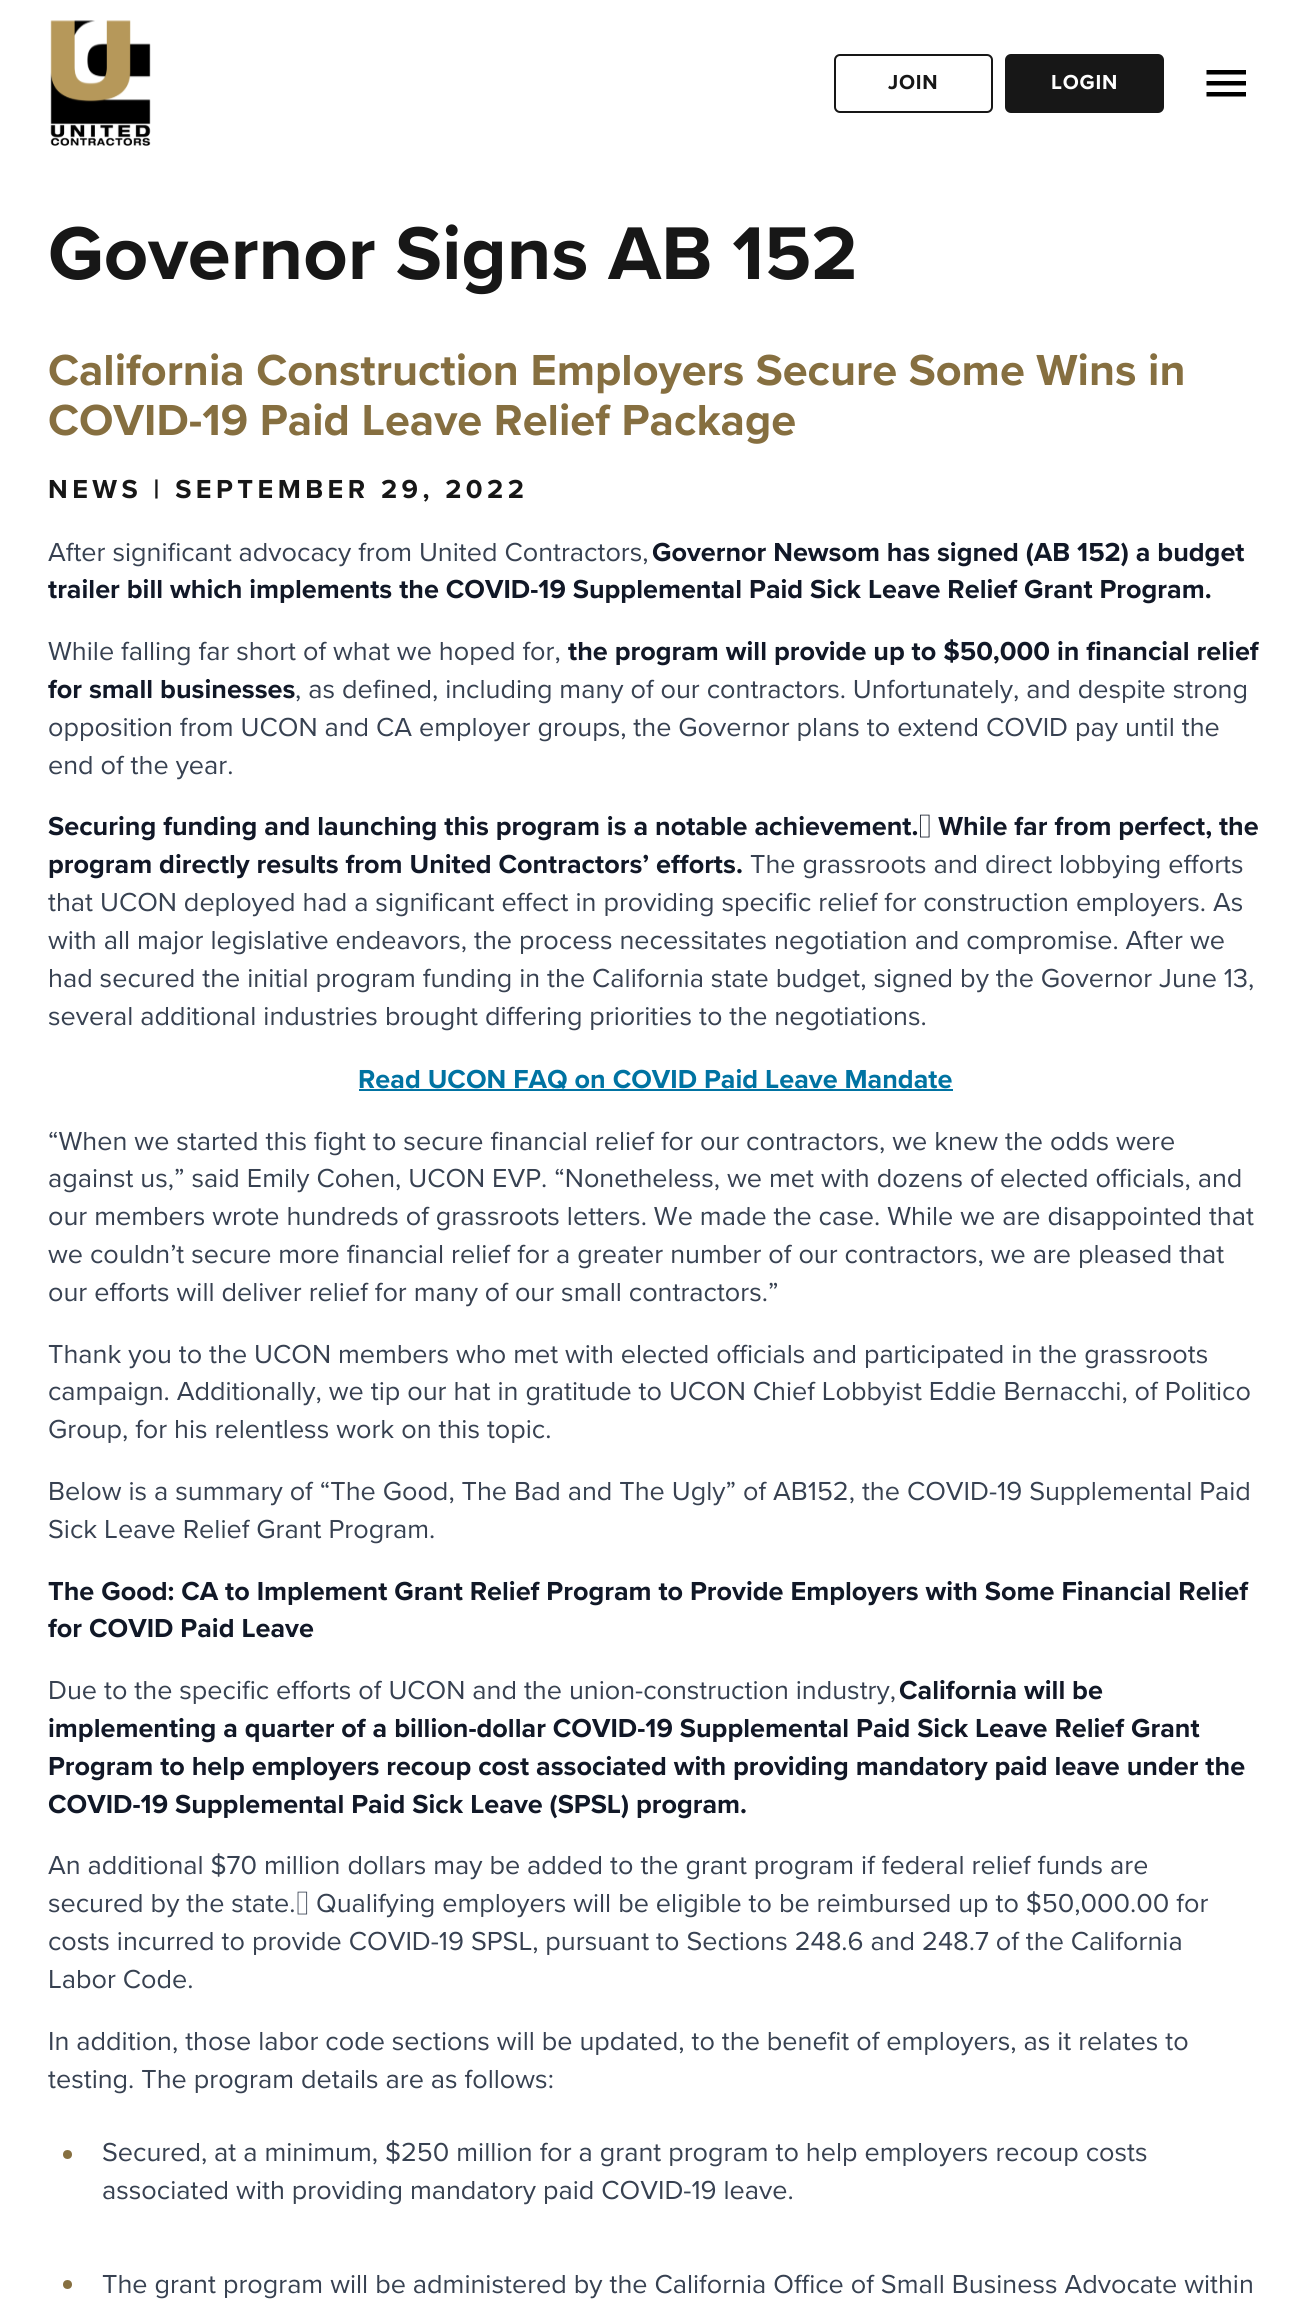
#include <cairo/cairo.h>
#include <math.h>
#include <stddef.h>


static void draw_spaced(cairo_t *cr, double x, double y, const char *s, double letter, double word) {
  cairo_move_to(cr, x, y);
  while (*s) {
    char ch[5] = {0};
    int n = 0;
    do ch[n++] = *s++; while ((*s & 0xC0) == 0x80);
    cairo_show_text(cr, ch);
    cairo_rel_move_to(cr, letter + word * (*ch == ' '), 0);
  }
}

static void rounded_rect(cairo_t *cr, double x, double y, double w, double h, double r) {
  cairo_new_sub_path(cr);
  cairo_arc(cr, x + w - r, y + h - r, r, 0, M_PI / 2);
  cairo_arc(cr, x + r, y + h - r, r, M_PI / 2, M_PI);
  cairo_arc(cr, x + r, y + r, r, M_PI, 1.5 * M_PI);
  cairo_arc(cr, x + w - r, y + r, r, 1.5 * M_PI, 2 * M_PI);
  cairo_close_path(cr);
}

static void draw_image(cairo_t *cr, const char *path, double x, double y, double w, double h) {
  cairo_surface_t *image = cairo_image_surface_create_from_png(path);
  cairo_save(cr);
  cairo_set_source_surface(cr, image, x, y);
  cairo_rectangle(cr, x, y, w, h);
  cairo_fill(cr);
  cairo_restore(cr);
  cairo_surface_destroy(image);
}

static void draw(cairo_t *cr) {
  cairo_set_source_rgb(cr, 1, 1, 1);
  cairo_paint(cr);
  draw_image(cr, "images/1.png", 50, 20, 101, 126);
  rounded_rect(cr, 835, 55, 157, 57, 5);
  cairo_set_source_rgb(cr, 23 / 255.0, 23 / 255.0, 23 / 255.0);
  cairo_stroke(cr);
  rounded_rect(cr, 1006, 55, 157, 57, 5);
  cairo_fill_preserve(cr);
  cairo_stroke(cr);
  cairo_set_source_rgb(cr, 0, 0, 0);
  cairo_new_path(cr);
  cairo_move_to(cr, 1206.5, 96.5);
  cairo_line_to(cr, 1206.5, 92);
  cairo_line_to(cr, 1246, 92);
  cairo_line_to(cr, 1246, 96.5);
  cairo_close_path(cr);
  cairo_move_to(cr, 1206.5, 85.5);
  cairo_line_to(cr, 1206.5, 81);
  cairo_line_to(cr, 1246, 81);
  cairo_line_to(cr, 1246, 85.5);
  cairo_close_path(cr);
  cairo_move_to(cr, 1206.5, 74.5);
  cairo_line_to(cr, 1206.5, 70);
  cairo_line_to(cr, 1246, 70);
  cairo_line_to(cr, 1246, 74.5);
  cairo_close_path(cr);
  cairo_fill(cr);
  cairo_set_source_rgb(cr, 0, 115 / 255.0, 162 / 255.0);
  cairo_rectangle(cr, 359, 1089, 594, 2);
  cairo_fill(cr);
  cairo_set_source_rgb(cr, 134 / 255.0, 111 / 255.0, 64 / 255.0);
  cairo_arc(cr, 67.5, 2154.5, 4.5, 0, 2 * M_PI);
  cairo_fill(cr);
  cairo_arc(cr, 67.5, 2284.5, 4.5, 0, 2 * M_PI);
  cairo_fill(cr);
  cairo_select_font_face(cr, "Proxima Nova", CAIRO_FONT_SLANT_NORMAL, CAIRO_FONT_WEIGHT_BOLD);
  cairo_set_font_size(cr, 21);
  cairo_set_source_rgb(cr, 23 / 255.0, 23 / 255.0, 23 / 255.0);
  draw_spaced(cr, 888, 89, "JOIN", 0.75, 0);
  cairo_set_source_rgb(cr, 1, 1, 1);
  draw_spaced(cr, 1051, 89, "LOGIN", 0.75, 0);
  cairo_set_font_size(cr, 77.4);
  cairo_set_source_rgb(cr, 23 / 255.0, 23 / 255.0, 23 / 255.0);
  cairo_move_to(cr, 48, 279);
  cairo_show_text(cr, "Governor Signs AB 152");
  cairo_set_font_size(cr, 45);
  cairo_set_source_rgb(cr, 134 / 255.0, 111 / 255.0, 64 / 255.0);
  cairo_move_to(cr, 48, 385);
  cairo_show_text(cr, "California Construction Employers Secure Some Wins in");
  cairo_move_to(cr, 48, 435);
  cairo_show_text(cr, "COVID-19 Paid Leave Relief Package");
  cairo_set_font_size(cr, 27);
  cairo_set_source_rgb(cr, 23 / 255.0, 23 / 255.0, 23 / 255.0);
  draw_spaced(cr, 48, 498, "NEWS | SEPTEMBER 29, 2022", 4.45, 0);
  cairo_select_font_face(cr, "Proxima Nova", CAIRO_FONT_SLANT_NORMAL, CAIRO_FONT_WEIGHT_NORMAL);
  cairo_set_source_rgb(cr, 55 / 255.0, 65 / 255.0, 81 / 255.0);
  cairo_move_to(cr, 48, 561);
  cairo_show_text(cr, "After significant advocacy from United Contractors,");
  cairo_select_font_face(cr, "Proxima Nova", CAIRO_FONT_SLANT_NORMAL, CAIRO_FONT_WEIGHT_BOLD);
  cairo_set_source_rgb(cr, 17 / 255.0, 24 / 255.0, 39 / 255.0);
  cairo_move_to(cr, 652, 561);
  cairo_show_text(cr, "Governor Newsom has signed (AB 152) a budget");
  cairo_move_to(cr, 48, 598);
  cairo_show_text(cr, "trailer bill which implements the COVID-19 Supplemental Paid Sick Leave Relief Grant Program.");
  cairo_select_font_face(cr, "Proxima Nova", CAIRO_FONT_SLANT_NORMAL, CAIRO_FONT_WEIGHT_NORMAL);
  cairo_set_source_rgb(cr, 55 / 255.0, 65 / 255.0, 81 / 255.0);
  cairo_move_to(cr, 48, 660);
  cairo_show_text(cr, "While falling far short of what we hoped for,");
  cairo_select_font_face(cr, "Proxima Nova", CAIRO_FONT_SLANT_NORMAL, CAIRO_FONT_WEIGHT_BOLD);
  cairo_set_source_rgb(cr, 17 / 255.0, 24 / 255.0, 39 / 255.0);
  cairo_move_to(cr, 568, 660);
  cairo_show_text(cr, "the program will provide up to $50,000 in financial relief");
  cairo_move_to(cr, 48, 698);
  cairo_show_text(cr, "for small businesses");
  cairo_select_font_face(cr, "Proxima Nova", CAIRO_FONT_SLANT_NORMAL, CAIRO_FONT_WEIGHT_NORMAL);
  cairo_set_source_rgb(cr, 55 / 255.0, 65 / 255.0, 81 / 255.0);
  cairo_move_to(cr, 295, 698);
  cairo_show_text(cr, ", as defined, including many of our contractors. Unfortunately, and despite strong");
  cairo_move_to(cr, 48, 736);
  cairo_show_text(cr, "opposition from UCON and CA employer groups, the Governor plans to extend COVID pay until the");
  cairo_move_to(cr, 48, 774);
  cairo_show_text(cr, "end of the year.");
  cairo_select_font_face(cr, "Proxima Nova", CAIRO_FONT_SLANT_NORMAL, CAIRO_FONT_WEIGHT_BOLD);
  cairo_set_source_rgb(cr, 17 / 255.0, 24 / 255.0, 39 / 255.0);
  cairo_move_to(cr, 48, 835);
  cairo_show_text(cr, "Securing funding and launching this program is a notable achievement.  While far from perfect, the");
  cairo_move_to(cr, 48, 873);
  cairo_show_text(cr, "program directly results from United Contractors’ efforts.");
  cairo_select_font_face(cr, "Proxima Nova", CAIRO_FONT_SLANT_NORMAL, CAIRO_FONT_WEIGHT_NORMAL);
  cairo_set_source_rgb(cr, 55 / 255.0, 65 / 255.0, 81 / 255.0);
  cairo_move_to(cr, 750, 873);
  cairo_show_text(cr, "The grassroots and direct lobbying efforts");
  cairo_move_to(cr, 48, 911);
  cairo_show_text(cr, "that UCON deployed had a significant effect in providing specific relief for construction employers. As");
  cairo_move_to(cr, 48, 949);
  cairo_show_text(cr, "with all major legislative endeavors, the process necessitates negotiation and compromise. After we");
  cairo_move_to(cr, 48, 987);
  cairo_show_text(cr, "had secured the initial program funding in the California state budget, signed by the Governor June 13,");
  cairo_move_to(cr, 48, 1025);
  cairo_show_text(cr, "several additional industries brought differing priorities to the negotiations.");
  cairo_select_font_face(cr, "Proxima Nova", CAIRO_FONT_SLANT_NORMAL, CAIRO_FONT_WEIGHT_BOLD);
  cairo_set_source_rgb(cr, 0, 115 / 255.0, 162 / 255.0);
  cairo_move_to(cr, 358, 1088);
  cairo_show_text(cr, "Read UCON FAQ on COVID Paid Leave Mandate");
  cairo_select_font_face(cr, "Proxima Nova", CAIRO_FONT_SLANT_NORMAL, CAIRO_FONT_WEIGHT_NORMAL);
  cairo_set_source_rgb(cr, 55 / 255.0, 65 / 255.0, 81 / 255.0);
  cairo_move_to(cr, 48, 1150);
  cairo_show_text(cr, "“When we started this fight to secure financial relief for our contractors, we knew the odds were");
  cairo_move_to(cr, 48, 1187);
  cairo_show_text(cr, "against us,” said Emily Cohen, UCON EVP. “Nonetheless, we met with dozens of elected officials, and");
  cairo_move_to(cr, 48, 1225);
  cairo_show_text(cr, "our members wrote hundreds of grassroots letters. We made the case. While we are disappointed that");
  cairo_move_to(cr, 48, 1263);
  cairo_show_text(cr, "we couldn’t secure more financial relief for a greater number of our contractors, we are pleased that");
  cairo_move_to(cr, 48, 1301);
  cairo_show_text(cr, "our efforts will deliver relief for many of our small contractors.”");
  cairo_move_to(cr, 48, 1363);
  cairo_show_text(cr, "Thank you to the UCON members who met with elected officials and participated in the grassroots");
  cairo_move_to(cr, 48, 1400);
  cairo_show_text(cr, "campaign. Additionally, we tip our hat in gratitude to UCON Chief Lobbyist Eddie Bernacchi, of Politico");
  cairo_move_to(cr, 48, 1438);
  cairo_show_text(cr, "Group, for his relentless work on this topic.");
  cairo_move_to(cr, 48, 1500);
  cairo_show_text(cr, "Below is a summary of “The Good, The Bad and The Ugly” of AB152, the COVID-19 Supplemental Paid");
  cairo_move_to(cr, 48, 1538);
  cairo_show_text(cr, "Sick Leave Relief Grant Program.");
  cairo_select_font_face(cr, "Proxima Nova", CAIRO_FONT_SLANT_NORMAL, CAIRO_FONT_WEIGHT_BOLD);
  cairo_set_source_rgb(cr, 17 / 255.0, 24 / 255.0, 39 / 255.0);
  cairo_move_to(cr, 48, 1600);
  cairo_show_text(cr, "The Good: CA to Implement Grant Relief Program to Provide Employers with Some Financial Relief");
  cairo_move_to(cr, 48, 1637);
  cairo_show_text(cr, "for COVID Paid Leave");
  cairo_select_font_face(cr, "Proxima Nova", CAIRO_FONT_SLANT_NORMAL, CAIRO_FONT_WEIGHT_NORMAL);
  cairo_set_source_rgb(cr, 55 / 255.0, 65 / 255.0, 81 / 255.0);
  cairo_move_to(cr, 48, 1699);
  cairo_show_text(cr, "Due to the specific efforts of UCON and the union-construction industry,");
  cairo_select_font_face(cr, "Proxima Nova", CAIRO_FONT_SLANT_NORMAL, CAIRO_FONT_WEIGHT_BOLD);
  cairo_set_source_rgb(cr, 17 / 255.0, 24 / 255.0, 39 / 255.0);
  cairo_move_to(cr, 899, 1699);
  cairo_show_text(cr, "California will be");
  cairo_move_to(cr, 48, 1737);
  cairo_show_text(cr, "implementing a quarter of a billion-dollar COVID-19 Supplemental Paid Sick Leave Relief Grant");
  cairo_move_to(cr, 48, 1775);
  cairo_show_text(cr, "Program to help employers recoup cost associated with providing mandatory paid leave under the");
  cairo_move_to(cr, 48, 1813);
  cairo_show_text(cr, "COVID-19 Supplemental Paid Sick Leave (SPSL) program.");
  cairo_select_font_face(cr, "Proxima Nova", CAIRO_FONT_SLANT_NORMAL, CAIRO_FONT_WEIGHT_NORMAL);
  cairo_set_source_rgb(cr, 55 / 255.0, 65 / 255.0, 81 / 255.0);
  cairo_move_to(cr, 48, 1874);
  cairo_show_text(cr, "An additional $70 million dollars may be added to the grant program if federal relief funds are");
  cairo_move_to(cr, 48, 1912);
  cairo_show_text(cr, "secured by the state.  Qualifying employers will be eligible to be reimbursed up to $50,000.00 for");
  cairo_move_to(cr, 48, 1950);
  cairo_show_text(cr, "costs incurred to provide COVID-19 SPSL, pursuant to Sections 248.6 and 248.7 of the California");
  cairo_move_to(cr, 48, 1988);
  cairo_show_text(cr, "Labor Code.");
  cairo_move_to(cr, 48, 2050);
  cairo_show_text(cr, "In addition, those labor code sections will be updated, to the benefit of employers, as it relates to");
  cairo_move_to(cr, 48, 2088);
  cairo_show_text(cr, "testing. The program details are as follows:");
  cairo_move_to(cr, 102, 2161);
  cairo_show_text(cr, "Secured, at a minimum, $250 million for a grant program to help employers recoup costs");
  cairo_move_to(cr, 102, 2199);
  cairo_show_text(cr, "associated with providing mandatory paid COVID-19 leave.");
  cairo_move_to(cr, 102, 2293);
  cairo_show_text(cr, "The grant program will be administered by the California Office of Small Business Advocate within");
}

int main(void) {
  cairo_surface_t *surface = cairo_image_surface_create(CAIRO_FORMAT_RGB24, 1311, 2309);
  cairo_t *cr = cairo_create(surface);
  cairo_font_options_t *options = cairo_font_options_create();
  cairo_font_options_set_hint_metrics(options, CAIRO_HINT_METRICS_OFF);
  cairo_font_options_set_hint_style(options, CAIRO_HINT_STYLE_NONE);
  cairo_set_font_options(cr, options);
  cairo_set_miter_limit(cr, 4);
  draw(cr);
  cairo_surface_write_to_png(surface, "out.png");
  cairo_font_options_destroy(options);
  cairo_destroy(cr);
  cairo_surface_destroy(surface);
  return 0;
}
